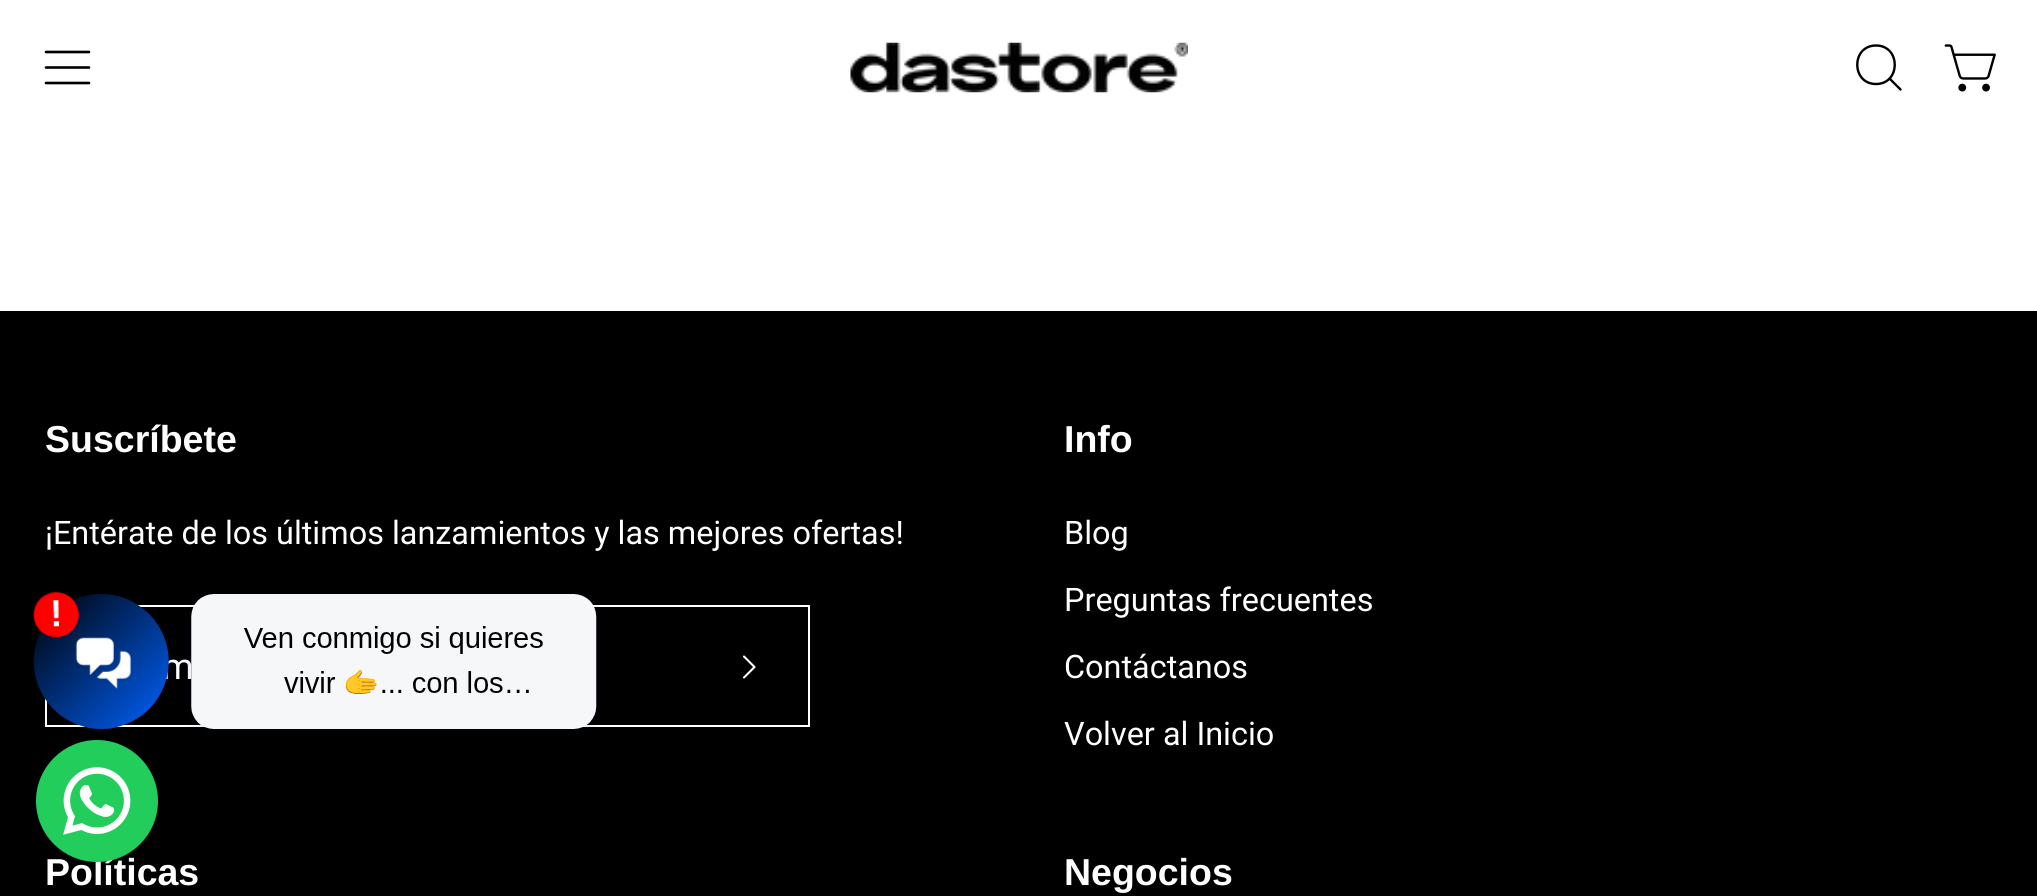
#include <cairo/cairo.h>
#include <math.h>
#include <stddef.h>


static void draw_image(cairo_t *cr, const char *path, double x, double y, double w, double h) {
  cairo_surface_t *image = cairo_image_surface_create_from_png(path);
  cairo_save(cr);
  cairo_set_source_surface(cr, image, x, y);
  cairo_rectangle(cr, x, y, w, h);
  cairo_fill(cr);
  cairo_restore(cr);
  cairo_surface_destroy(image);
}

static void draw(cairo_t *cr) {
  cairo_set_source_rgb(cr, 1, 1, 1);
  cairo_paint(cr);
  cairo_new_path(cr);
  cairo_move_to(cr, 46, 67.5);
  cairo_line_to(cr, 89, 67.5);
  cairo_move_to(cr, 46, 52);
  cairo_line_to(cr, 89, 52);
  cairo_move_to(cr, 46, 83);
  cairo_line_to(cr, 89, 83);
  cairo_set_source_rgb(cr, 0, 0, 0);
  cairo_set_line_width(cr, 2.6);
  cairo_set_line_cap(cr, CAIRO_LINE_CAP_ROUND);
  cairo_set_line_join(cr, CAIRO_LINE_JOIN_ROUND);
  cairo_stroke(cr);
  draw_image(cr, "images/1.png", 850, 42, 338, 51);
  cairo_new_path(cr);
  cairo_move_to(cr, 1876, 84);
  cairo_curve_to(cr, 1901, 84, 1901, 45.5, 1876, 45.5);
  cairo_curve_to(cr, 1851, 45.5, 1851, 84, 1876, 84);
  cairo_close_path(cr);
  cairo_move_to(cr, 1889.5, 78.5);
  cairo_line_to(cr, 1900.5, 89.5);
  cairo_set_line_width(cr, 2.4);
  cairo_stroke(cr);
  draw_image(cr, "images/2.png", 1944, 44, 52, 48);
  cairo_rectangle(cr, 0, 311, 2037, 585);
  cairo_fill(cr);
  cairo_set_source_rgb(cr, 1, 1, 1);
  cairo_rectangle(cr, 138, 605, 672, 2);
  cairo_fill(cr);
  cairo_rectangle(cr, 45, 725, 644, 2);
  cairo_fill(cr);
  cairo_rectangle(cr, 45, 698, 2, 29);
  cairo_fill(cr);
  cairo_rectangle(cr, 808, 605, 2, 122);
  cairo_fill(cr);
  cairo_rectangle(cr, 689, 725, 121, 2);
  cairo_fill(cr);
  cairo_new_path(cr);
  cairo_move_to(cr, 744, 656.5);
  cairo_line_to(cr, 754.5, 667);
  cairo_line_to(cr, 744, 677.5);
  cairo_set_line_width(cr, 2.1);
  cairo_stroke(cr);
  cairo_select_font_face(cr, "Liberation Sans", CAIRO_FONT_SLANT_NORMAL, CAIRO_FONT_WEIGHT_BOLD);
  cairo_set_font_size(cr, 37.5);
  cairo_move_to(cr, 45, 452);
  cairo_show_text(cr, "Suscríbete");
  cairo_select_font_face(cr, "Roboto", CAIRO_FONT_SLANT_NORMAL, CAIRO_FONT_WEIGHT_NORMAL);
  cairo_set_font_size(cr, 32.4);
  cairo_move_to(cr, 45, 544);
  cairo_show_text(cr, "¡Entérate de los últimos lanzamientos y las mejores ofertas!");
  cairo_set_font_size(cr, 36);
  cairo_move_to(cr, 162, 679);
  cairo_show_text(cr, "m");
  cairo_select_font_face(cr, "Liberation Sans", CAIRO_FONT_SLANT_NORMAL, CAIRO_FONT_WEIGHT_BOLD);
  cairo_set_font_size(cr, 37.5);
  cairo_move_to(cr, 1064, 452);
  cairo_show_text(cr, "Info");
  cairo_select_font_face(cr, "Roboto", CAIRO_FONT_SLANT_NORMAL, CAIRO_FONT_WEIGHT_NORMAL);
  cairo_set_font_size(cr, 32.4);
  cairo_move_to(cr, 1064, 544);
  cairo_show_text(cr, "Blog");
  cairo_move_to(cr, 1064, 611);
  cairo_show_text(cr, "Preguntas frecuentes");
  cairo_move_to(cr, 1064, 678);
  cairo_show_text(cr, "Contáctanos");
  cairo_move_to(cr, 1064, 745);
  cairo_show_text(cr, "Volver al Inicio");
  cairo_select_font_face(cr, "Liberation Sans", CAIRO_FONT_SLANT_NORMAL, CAIRO_FONT_WEIGHT_BOLD);
  cairo_set_font_size(cr, 37.5);
  cairo_move_to(cr, 45, 885);
  cairo_show_text(cr, "Políticas");
  cairo_move_to(cr, 1064, 885);
  cairo_show_text(cr, "Negocios");
  draw_image(cr, "images/3.png", 33, 592, 566, 143);
  cairo_set_source_rgb(cr, 34 / 255.0, 205 / 255.0, 91 / 255.0);
  cairo_arc(cr, 97, 801, 61, 0, 2 * M_PI);
  cairo_fill(cr);
  draw_image(cr, "images/4.png", 63, 767, 68, 68);
}

int main(void) {
  cairo_surface_t *surface = cairo_image_surface_create(CAIRO_FORMAT_RGB24, 2037, 896);
  cairo_t *cr = cairo_create(surface);
  cairo_font_options_t *options = cairo_font_options_create();
  cairo_font_options_set_hint_metrics(options, CAIRO_HINT_METRICS_OFF);
  cairo_font_options_set_hint_style(options, CAIRO_HINT_STYLE_NONE);
  cairo_set_font_options(cr, options);
  cairo_set_miter_limit(cr, 4);
  draw(cr);
  cairo_surface_write_to_png(surface, "out.png");
  cairo_font_options_destroy(options);
  cairo_destroy(cr);
  cairo_surface_destroy(surface);
  return 0;
}
